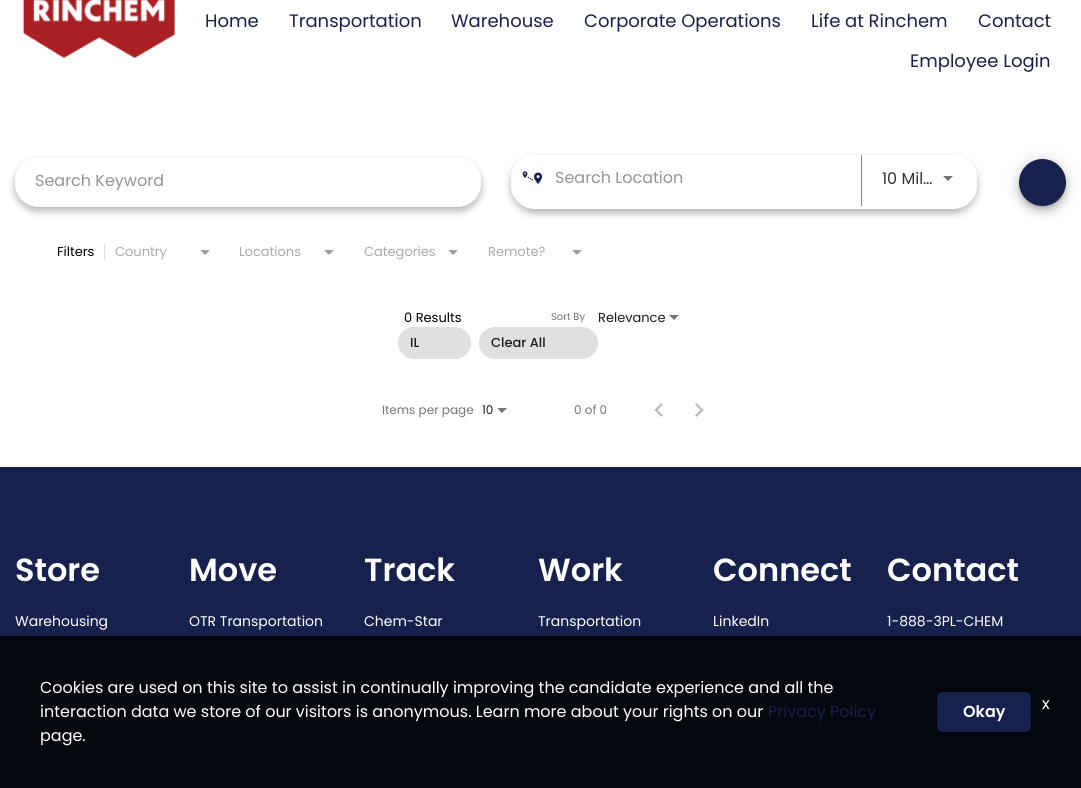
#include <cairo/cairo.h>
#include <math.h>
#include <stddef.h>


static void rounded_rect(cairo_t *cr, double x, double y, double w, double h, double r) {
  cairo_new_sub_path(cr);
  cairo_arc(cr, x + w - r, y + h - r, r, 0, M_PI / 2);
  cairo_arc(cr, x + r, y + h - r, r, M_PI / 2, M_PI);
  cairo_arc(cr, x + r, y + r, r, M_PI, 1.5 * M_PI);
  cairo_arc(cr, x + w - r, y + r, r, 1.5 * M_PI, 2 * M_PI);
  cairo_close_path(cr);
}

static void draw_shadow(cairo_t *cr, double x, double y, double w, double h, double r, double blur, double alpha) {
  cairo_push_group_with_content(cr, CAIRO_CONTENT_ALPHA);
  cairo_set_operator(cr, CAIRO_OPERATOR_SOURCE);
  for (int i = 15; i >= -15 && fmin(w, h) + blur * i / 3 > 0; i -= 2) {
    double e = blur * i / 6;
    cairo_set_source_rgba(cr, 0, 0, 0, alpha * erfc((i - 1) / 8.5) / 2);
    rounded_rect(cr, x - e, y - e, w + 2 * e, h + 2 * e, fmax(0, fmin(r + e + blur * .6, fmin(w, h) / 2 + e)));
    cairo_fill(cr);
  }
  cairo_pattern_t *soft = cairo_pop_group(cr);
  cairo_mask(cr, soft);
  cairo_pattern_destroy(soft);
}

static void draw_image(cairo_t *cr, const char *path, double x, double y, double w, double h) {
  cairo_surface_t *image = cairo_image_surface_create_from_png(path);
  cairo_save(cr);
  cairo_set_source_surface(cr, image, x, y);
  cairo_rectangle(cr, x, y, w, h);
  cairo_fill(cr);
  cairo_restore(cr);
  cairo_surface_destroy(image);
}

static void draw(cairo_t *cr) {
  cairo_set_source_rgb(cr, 1, 1, 1);
  cairo_paint(cr);
  draw_image(cr, "images/1.png", 23, 0, 153, 59);
  cairo_save(cr);
  cairo_set_fill_rule(cr, CAIRO_FILL_RULE_EVEN_ODD);
  cairo_new_path(cr);
  cairo_move_to(cr, 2, 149);
  cairo_line_to(cr, 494, 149);
  cairo_line_to(cr, 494, 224);
  cairo_line_to(cr, 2, 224);
  cairo_close_path(cr);
  cairo_move_to(cr, 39, 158);
  cairo_line_to(cr, 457, 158);
  cairo_curve_to(cr, 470.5, 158, 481, 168.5, 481, 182);
  cairo_line_to(cr, 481, 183);
  cairo_curve_to(cr, 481, 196.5, 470.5, 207, 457, 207);
  cairo_line_to(cr, 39, 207);
  cairo_curve_to(cr, 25.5, 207, 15, 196.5, 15, 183);
  cairo_line_to(cr, 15, 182);
  cairo_curve_to(cr, 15, 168.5, 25.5, 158, 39, 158);
  cairo_close_path(cr);
  cairo_clip(cr);
  cairo_set_source_rgb(cr, 0, 0, 0);
  draw_shadow(cr, 15, 162, 466, 49, 24, 4, 0.3);
  cairo_restore(cr);
  cairo_set_source_rgb(cr, 1, 1, 1);
  rounded_rect(cr, 15, 158, 466, 46, 23);
  cairo_fill(cr);
  cairo_save(cr);
  cairo_set_fill_rule(cr, CAIRO_FILL_RULE_EVEN_ODD);
  cairo_new_path(cr);
  cairo_move_to(cr, 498, 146);
  cairo_line_to(cr, 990, 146);
  cairo_line_to(cr, 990, 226);
  cairo_line_to(cr, 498, 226);
  cairo_close_path(cr);
  cairo_move_to(cr, 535, 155);
  cairo_line_to(cr, 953, 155);
  cairo_curve_to(cr, 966.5, 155, 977, 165.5, 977, 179);
  cairo_line_to(cr, 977, 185);
  cairo_curve_to(cr, 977, 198.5, 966.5, 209, 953, 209);
  cairo_line_to(cr, 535, 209);
  cairo_curve_to(cr, 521.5, 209, 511, 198.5, 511, 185);
  cairo_line_to(cr, 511, 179);
  cairo_curve_to(cr, 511, 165.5, 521.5, 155, 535, 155);
  cairo_close_path(cr);
  cairo_clip(cr);
  cairo_set_source_rgb(cr, 0, 0, 0);
  draw_shadow(cr, 511, 159, 466, 54, 24, 4, 0.3);
  cairo_restore(cr);
  cairo_new_path(cr);
  cairo_move_to(cr, 534, 155);
  cairo_line_to(cr, 853, 155);
  cairo_line_to(cr, 853, 201);
  cairo_line_to(cr, 534, 201);
  cairo_curve_to(cr, 521.5, 201, 511, 190.5, 511, 178);
  cairo_curve_to(cr, 511, 165.5, 521.5, 155, 534, 155);
  cairo_close_path(cr);
  cairo_fill(cr);
  draw_image(cr, "images/2.png", 522, 171, 21, 13);
  cairo_new_path(cr);
  cairo_move_to(cr, 861, 155);
  cairo_line_to(cr, 953, 155);
  cairo_curve_to(cr, 966.5, 155, 977, 165.5, 977, 179);
  cairo_line_to(cr, 977, 182);
  cairo_curve_to(cr, 977, 195.5, 966.5, 206, 953, 206);
  cairo_line_to(cr, 861, 206);
  cairo_close_path(cr);
  cairo_fill(cr);
  cairo_set_source_rgb(cr, 136 / 255.0, 136 / 255.0, 136 / 255.0);
  cairo_rectangle(cr, 861, 155, 1, 51);
  cairo_fill(cr);
  cairo_set_source_rgb(cr, 117 / 255.0, 117 / 255.0, 117 / 255.0);
  cairo_new_path(cr);
  cairo_move_to(cr, 943, 176);
  cairo_line_to(cr, 953, 176);
  cairo_line_to(cr, 948, 181);
  cairo_close_path(cr);
  cairo_fill(cr);
  cairo_set_source_rgb(cr, 0, 0, 0);
  draw_shadow(cr, 1019, 160, 47, 47, 23.5, 9, 0.12);
  draw_shadow(cr, 1019, 165, 47, 47, 23.5, 5, 0.14);
  draw_shadow(cr, 1020, 163, 45, 45, 22.5, 2.5, 0.2);
  cairo_set_source_rgb(cr, 23 / 255.0, 33 / 255.0, 77 / 255.0);
  cairo_arc(cr, 1042.5, 182.5, 23.5, 0, 2 * M_PI);
  cairo_fill(cr);
  cairo_set_source_rgb(cr, 221 / 255.0, 221 / 255.0, 221 / 255.0);
  cairo_rectangle(cr, 104, 244, 1, 16);
  cairo_fill(cr);
  cairo_set_source_rgb(cr, 158 / 255.0, 158 / 255.0, 158 / 255.0);
  cairo_new_path(cr);
  cairo_move_to(cr, 200, 250);
  cairo_line_to(cr, 210, 250);
  cairo_line_to(cr, 205, 255);
  cairo_close_path(cr);
  cairo_fill(cr);
  cairo_new_path(cr);
  cairo_move_to(cr, 324, 250);
  cairo_line_to(cr, 334, 250);
  cairo_line_to(cr, 329, 255);
  cairo_close_path(cr);
  cairo_fill(cr);
  cairo_new_path(cr);
  cairo_move_to(cr, 448, 250);
  cairo_line_to(cr, 458, 250);
  cairo_line_to(cr, 453, 255);
  cairo_close_path(cr);
  cairo_fill(cr);
  cairo_new_path(cr);
  cairo_move_to(cr, 572, 250);
  cairo_line_to(cr, 582, 250);
  cairo_line_to(cr, 577, 255);
  cairo_close_path(cr);
  cairo_fill(cr);
  cairo_set_source_rgb(cr, 224 / 255.0, 224 / 255.0, 224 / 255.0);
  rounded_rect(cr, 398, 327, 73, 32, 16);
  cairo_fill(cr);
  rounded_rect(cr, 479, 327, 119, 32, 16);
  cairo_fill(cr);
  cairo_set_source_rgb(cr, 117 / 255.0, 117 / 255.0, 117 / 255.0);
  cairo_new_path(cr);
  cairo_move_to(cr, 669, 315);
  cairo_line_to(cr, 679, 315);
  cairo_line_to(cr, 674, 320);
  cairo_close_path(cr);
  cairo_fill(cr);
  cairo_new_path(cr);
  cairo_move_to(cr, 497, 408);
  cairo_line_to(cr, 507, 408);
  cairo_line_to(cr, 502, 413);
  cairo_close_path(cr);
  cairo_fill(cr);
  draw_image(cr, "images/3.png", 654, 403, 9, 14);
  draw_image(cr, "images/4.png", 695, 403, 9, 14);
  cairo_set_source_rgb(cr, 23 / 255.0, 33 / 255.0, 77 / 255.0);
  cairo_rectangle(cr, 0, 467, 1081, 321);
  cairo_fill(cr);
  cairo_set_source_rgba(cr, 0, 0, 0, 0.8);
  cairo_rectangle(cr, 0, 636, 1081, 152);
  cairo_fill(cr);
  cairo_set_source_rgb(cr, 23 / 255.0, 33 / 255.0, 77 / 255.0);
  rounded_rect(cr, 938, 693, 92, 38, 5);
  cairo_fill_preserve(cr);
  cairo_stroke(cr);
  cairo_select_font_face(cr, "Poppins", CAIRO_FONT_SLANT_NORMAL, CAIRO_FONT_WEIGHT_NORMAL);
  cairo_set_font_size(cr, 18);
  cairo_move_to(cr, 205, 27);
  cairo_show_text(cr, "Home");
  cairo_move_to(cr, 289, 27);
  cairo_show_text(cr, "Transportation");
  cairo_move_to(cr, 451, 27);
  cairo_show_text(cr, "Warehouse");
  cairo_move_to(cr, 584, 27);
  cairo_show_text(cr, "Corporate Operations");
  cairo_move_to(cr, 811, 27);
  cairo_show_text(cr, "Life at Rinchem");
  cairo_move_to(cr, 978, 27);
  cairo_show_text(cr, "Contact");
  cairo_move_to(cr, 910, 67);
  cairo_show_text(cr, "Employee Login");
  cairo_set_font_size(cr, 16);
  cairo_set_source_rgb(cr, 148 / 255.0, 148 / 255.0, 148 / 255.0);
  cairo_move_to(cr, 35, 186);
  cairo_show_text(cr, "Search Keyword");
  cairo_move_to(cr, 555, 183);
  cairo_show_text(cr, "Search Location");
  cairo_set_source_rgb(cr, 51 / 255.0, 51 / 255.0, 51 / 255.0);
  cairo_move_to(cr, 882, 184);
  cairo_show_text(cr, "10 Mil…");
  cairo_set_font_size(cr, 13);
  cairo_set_source_rgb(cr, 0, 0, 0);
  cairo_move_to(cr, 57, 256);
  cairo_show_text(cr, "Filters");
  cairo_set_source_rgb(cr, 170 / 255.0, 170 / 255.0, 170 / 255.0);
  cairo_move_to(cr, 115, 256);
  cairo_show_text(cr, "Country");
  cairo_move_to(cr, 239, 256);
  cairo_show_text(cr, "Locations");
  cairo_move_to(cr, 364, 256);
  cairo_show_text(cr, "Categories");
  cairo_move_to(cr, 488, 256);
  cairo_show_text(cr, "Remote?");
  cairo_set_source_rgb(cr, 0, 0, 0);
  cairo_move_to(cr, 404, 322);
  cairo_show_text(cr, "0 Results");
  cairo_select_font_face(cr, "Poppins Medium", CAIRO_FONT_SLANT_NORMAL, CAIRO_FONT_WEIGHT_NORMAL);
  cairo_set_source_rgb(cr, 29 / 255.0, 29 / 255.0, 29 / 255.0);
  cairo_move_to(cr, 410, 347);
  cairo_show_text(cr, "IL");
  cairo_move_to(cr, 491, 347);
  cairo_show_text(cr, "Clear All");
  cairo_select_font_face(cr, "Poppins", CAIRO_FONT_SLANT_NORMAL, CAIRO_FONT_WEIGHT_NORMAL);
  cairo_set_font_size(cr, 10);
  cairo_set_source_rgb(cr, 117 / 255.0, 117 / 255.0, 117 / 255.0);
  cairo_move_to(cr, 551, 320);
  cairo_show_text(cr, "Sort By");
  cairo_set_font_size(cr, 13);
  cairo_set_source_rgb(cr, 29 / 255.0, 29 / 255.0, 29 / 255.0);
  cairo_move_to(cr, 598, 322);
  cairo_show_text(cr, "Relevance");
  cairo_set_font_size(cr, 12);
  cairo_set_source_rgb(cr, 117 / 255.0, 117 / 255.0, 117 / 255.0);
  cairo_move_to(cr, 382, 414);
  cairo_show_text(cr, "Items per page");
  cairo_set_source_rgb(cr, 29 / 255.0, 29 / 255.0, 29 / 255.0);
  cairo_move_to(cr, 482, 414);
  cairo_show_text(cr, "10");
  cairo_set_source_rgb(cr, 117 / 255.0, 117 / 255.0, 117 / 255.0);
  cairo_move_to(cr, 574, 414);
  cairo_show_text(cr, "0 of 0");
  cairo_select_font_face(cr, "Poppins SemiBold", CAIRO_FONT_SLANT_NORMAL, CAIRO_FONT_WEIGHT_NORMAL);
  cairo_set_font_size(cr, 32);
  cairo_set_source_rgb(cr, 1, 1, 1);
  cairo_move_to(cr, 15, 581);
  cairo_show_text(cr, "Store");
  cairo_select_font_face(cr, "Poppins", CAIRO_FONT_SLANT_NORMAL, CAIRO_FONT_WEIGHT_NORMAL);
  cairo_set_font_size(cr, 14);
  cairo_move_to(cr, 15, 626);
  cairo_show_text(cr, "Warehousing");
  cairo_select_font_face(cr, "Poppins SemiBold", CAIRO_FONT_SLANT_NORMAL, CAIRO_FONT_WEIGHT_NORMAL);
  cairo_set_font_size(cr, 32);
  cairo_move_to(cr, 189, 581);
  cairo_show_text(cr, "Move");
  cairo_select_font_face(cr, "Poppins", CAIRO_FONT_SLANT_NORMAL, CAIRO_FONT_WEIGHT_NORMAL);
  cairo_set_font_size(cr, 14);
  cairo_move_to(cr, 189, 626);
  cairo_show_text(cr, "OTR Transportation");
  cairo_select_font_face(cr, "Poppins SemiBold", CAIRO_FONT_SLANT_NORMAL, CAIRO_FONT_WEIGHT_NORMAL);
  cairo_set_font_size(cr, 32);
  cairo_move_to(cr, 364, 581);
  cairo_show_text(cr, "Track");
  cairo_select_font_face(cr, "Poppins", CAIRO_FONT_SLANT_NORMAL, CAIRO_FONT_WEIGHT_NORMAL);
  cairo_set_font_size(cr, 14);
  cairo_move_to(cr, 364, 626);
  cairo_show_text(cr, "Chem-Star");
  cairo_select_font_face(cr, "Poppins SemiBold", CAIRO_FONT_SLANT_NORMAL, CAIRO_FONT_WEIGHT_NORMAL);
  cairo_set_font_size(cr, 32);
  cairo_move_to(cr, 538, 581);
  cairo_show_text(cr, "Work");
  cairo_select_font_face(cr, "Poppins", CAIRO_FONT_SLANT_NORMAL, CAIRO_FONT_WEIGHT_NORMAL);
  cairo_set_font_size(cr, 14);
  cairo_move_to(cr, 538, 626);
  cairo_show_text(cr, "Transportation");
  cairo_select_font_face(cr, "Poppins SemiBold", CAIRO_FONT_SLANT_NORMAL, CAIRO_FONT_WEIGHT_NORMAL);
  cairo_set_font_size(cr, 32);
  cairo_move_to(cr, 713, 581);
  cairo_show_text(cr, "Connect");
  cairo_select_font_face(cr, "Poppins", CAIRO_FONT_SLANT_NORMAL, CAIRO_FONT_WEIGHT_NORMAL);
  cairo_set_font_size(cr, 14);
  cairo_move_to(cr, 713, 626);
  cairo_show_text(cr, "LinkedIn");
  cairo_select_font_face(cr, "Poppins SemiBold", CAIRO_FONT_SLANT_NORMAL, CAIRO_FONT_WEIGHT_NORMAL);
  cairo_set_font_size(cr, 32);
  cairo_move_to(cr, 887, 581);
  cairo_show_text(cr, "Contact");
  cairo_select_font_face(cr, "Poppins", CAIRO_FONT_SLANT_NORMAL, CAIRO_FONT_WEIGHT_NORMAL);
  cairo_set_font_size(cr, 14);
  cairo_move_to(cr, 887, 626);
  cairo_show_text(cr, "1-888-3PL-CHEM");
  cairo_set_font_size(cr, 16);
  cairo_move_to(cr, 40, 693);
  cairo_show_text(cr, "Cookies are used on this site to assist in continually improving the candidate experience and all the");
  cairo_move_to(cr, 40, 717);
  cairo_show_text(cr, "interaction data we store of our visitors is anonymous. Learn more about your rights on our");
  cairo_set_source_rgb(cr, 23 / 255.0, 33 / 255.0, 77 / 255.0);
  cairo_move_to(cr, 768, 717);
  cairo_show_text(cr, "Privacy Policy");
  cairo_set_source_rgb(cr, 1, 1, 1);
  cairo_move_to(cr, 40, 741);
  cairo_show_text(cr, "page.");
  cairo_select_font_face(cr, "Poppins SemiBold", CAIRO_FONT_SLANT_NORMAL, CAIRO_FONT_WEIGHT_NORMAL);
  cairo_move_to(cr, 963, 717);
  cairo_show_text(cr, "Okay");
  cairo_select_font_face(cr, "Poppins", CAIRO_FONT_SLANT_NORMAL, CAIRO_FONT_WEIGHT_NORMAL);
  cairo_move_to(cr, 1042, 709);
  cairo_show_text(cr, "x");
}

int main(void) {
  cairo_surface_t *surface = cairo_image_surface_create(CAIRO_FORMAT_RGB24, 1081, 788);
  cairo_t *cr = cairo_create(surface);
  cairo_font_options_t *options = cairo_font_options_create();
  cairo_font_options_set_hint_metrics(options, CAIRO_HINT_METRICS_OFF);
  cairo_font_options_set_hint_style(options, CAIRO_HINT_STYLE_NONE);
  cairo_set_font_options(cr, options);
  cairo_set_miter_limit(cr, 4);
  draw(cr);
  cairo_surface_write_to_png(surface, "out.png");
  cairo_font_options_destroy(options);
  cairo_destroy(cr);
  cairo_surface_destroy(surface);
  return 0;
}
